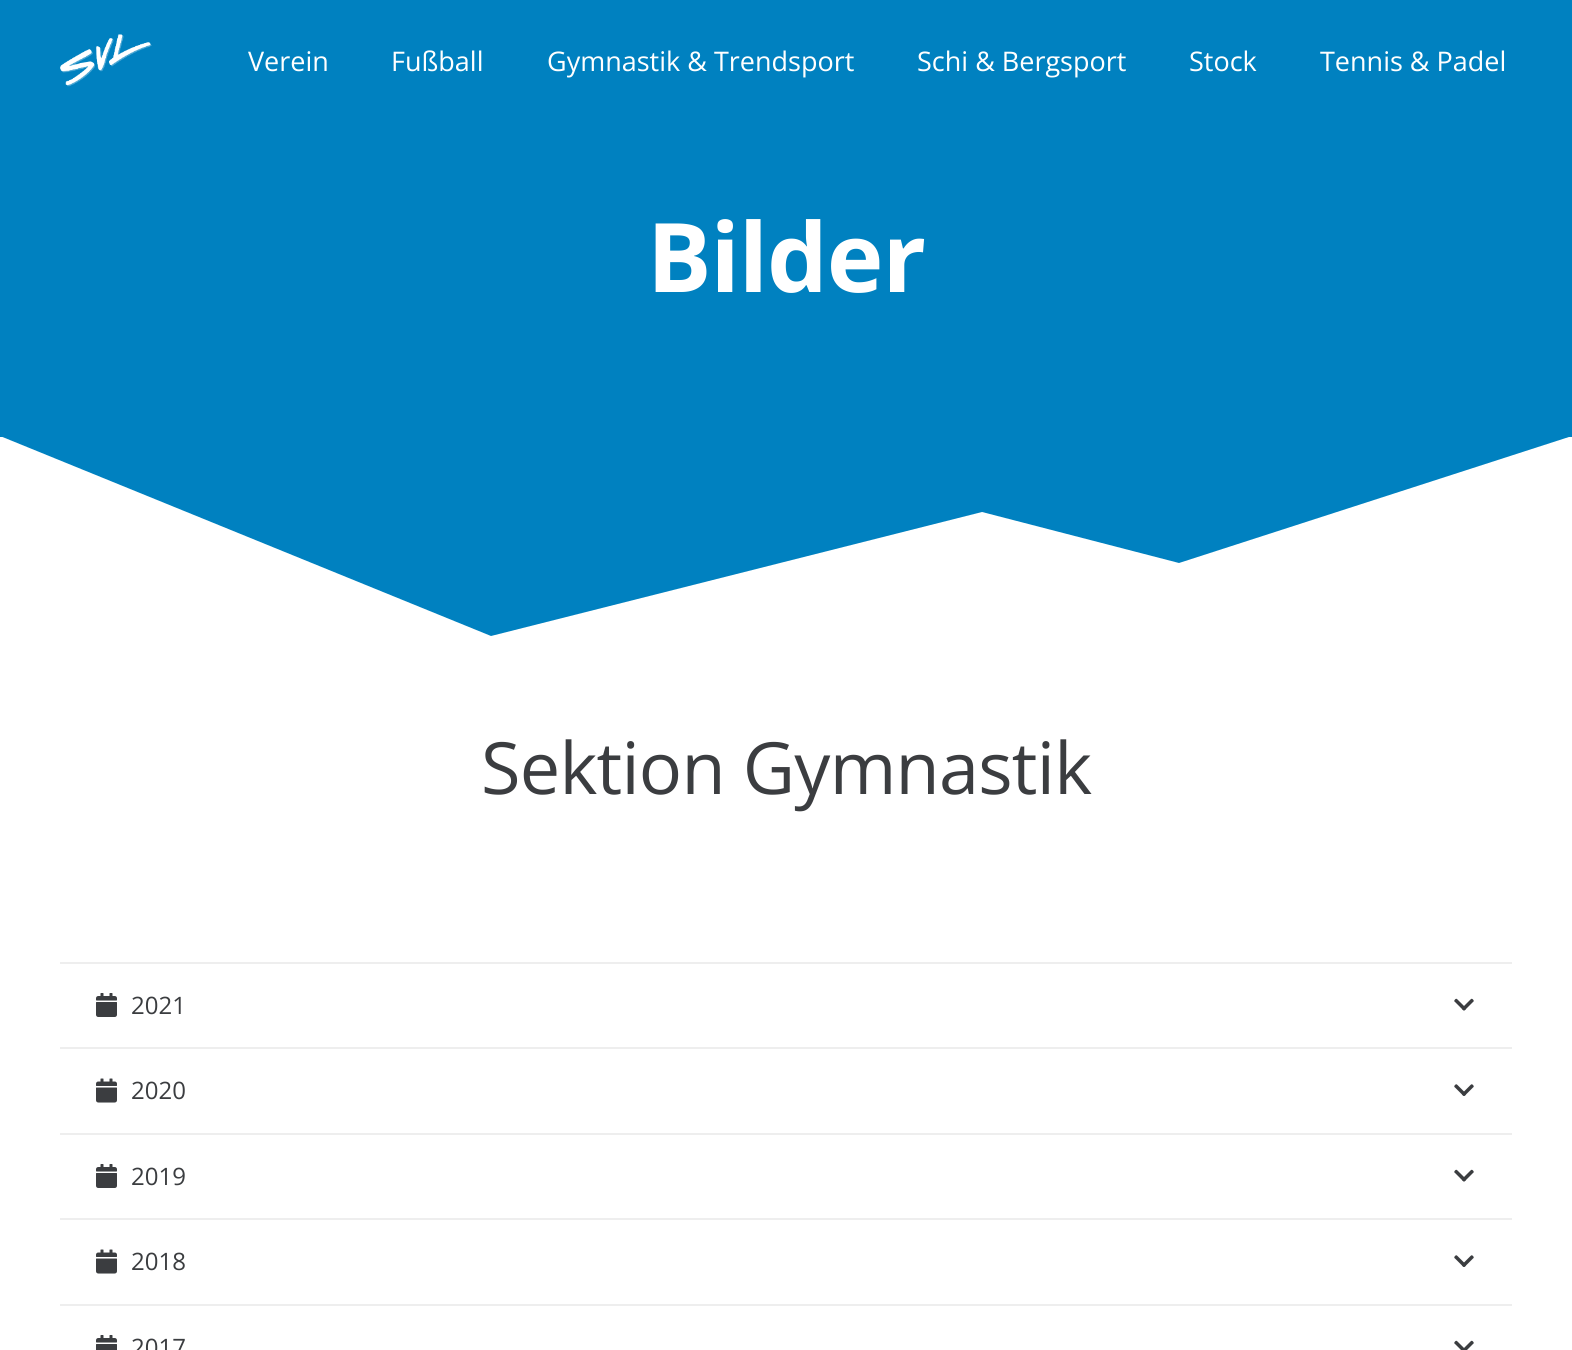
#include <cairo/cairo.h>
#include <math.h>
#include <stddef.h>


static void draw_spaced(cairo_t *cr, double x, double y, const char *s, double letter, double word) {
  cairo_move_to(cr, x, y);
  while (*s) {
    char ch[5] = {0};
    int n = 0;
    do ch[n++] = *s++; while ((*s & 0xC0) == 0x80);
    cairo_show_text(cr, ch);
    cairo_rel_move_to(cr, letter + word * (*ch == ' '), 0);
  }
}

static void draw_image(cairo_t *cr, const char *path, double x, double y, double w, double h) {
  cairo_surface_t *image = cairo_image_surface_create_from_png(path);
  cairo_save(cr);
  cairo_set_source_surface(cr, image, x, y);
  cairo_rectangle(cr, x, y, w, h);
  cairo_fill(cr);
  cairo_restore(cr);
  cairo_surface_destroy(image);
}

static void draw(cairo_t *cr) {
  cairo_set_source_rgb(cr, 1, 1, 1);
  cairo_paint(cr);
  cairo_set_source_rgb(cr, 0, 129 / 255.0, 192 / 255.0);
  cairo_rectangle(cr, 0, 0, 1572, 636);
  cairo_fill(cr);
  draw_image(cr, "images/1.png", 60, 34, 92, 53);
  cairo_save(cr);
  cairo_rectangle(cr, 0, 437, 1572, 202);
  cairo_clip(cr);
  cairo_set_source_rgb(cr, 1, 1, 1);
  cairo_new_path(cr);
  cairo_move_to(cr, 1572, 639);
  cairo_line_to(cr, 0, 639);
  cairo_line_to(cr, 0, 436);
  cairo_line_to(cr, 491, 636);
  cairo_line_to(cr, 982, 512);
  cairo_line_to(cr, 1179, 563);
  cairo_line_to(cr, 1572, 436);
  cairo_close_path(cr);
  cairo_fill(cr);
  cairo_restore(cr);
  cairo_set_source_rgb(cr, 238 / 255.0, 238 / 255.0, 238 / 255.0);
  cairo_rectangle(cr, 60, 962, 1452, 2);
  cairo_fill(cr);
  draw_image(cr, "images/2.png", 96, 993, 21, 24);
  cairo_set_source_rgb(cr, 59 / 255.0, 61 / 255.0, 64 / 255.0);
  cairo_new_path(cr);
  cairo_move_to(cr, 1455, 999.5);
  cairo_curve_to(cr, 1456, 998.5, 1456.5, 998.5, 1457.5, 999.5);
  cairo_line_to(cr, 1465.5, 1007.5);
  cairo_curve_to(cr, 1466, 1008, 1466, 1009, 1465.5, 1009.5);
  cairo_line_to(cr, 1465, 1010);
  cairo_curve_to(cr, 1464.5, 1010.5, 1463.5, 1010.5, 1463, 1010);
  cairo_line_to(cr, 1455, 1002);
  cairo_curve_to(cr, 1454, 1001.5, 1454, 1000.5, 1455, 999.5);
  cairo_close_path(cr);
  cairo_fill(cr);
  cairo_new_path(cr);
  cairo_move_to(cr, 1473, 999.5);
  cairo_curve_to(cr, 1474, 1000.5, 1474, 1001.5, 1473, 1002);
  cairo_line_to(cr, 1465, 1010);
  cairo_curve_to(cr, 1464.5, 1010.5, 1463.5, 1010.5, 1463, 1010);
  cairo_line_to(cr, 1462.5, 1009.5);
  cairo_curve_to(cr, 1462, 1009, 1462, 1008, 1462.5, 1007.5);
  cairo_line_to(cr, 1470.5, 999.5);
  cairo_curve_to(cr, 1471.5, 998.5, 1472, 998.5, 1473, 999.5);
  cairo_close_path(cr);
  cairo_fill(cr);
  cairo_set_source_rgb(cr, 238 / 255.0, 238 / 255.0, 238 / 255.0);
  cairo_rectangle(cr, 60, 1047, 1452, 2);
  cairo_fill(cr);
  draw_image(cr, "images/3.png", 96, 1078, 21, 25);
  cairo_set_source_rgb(cr, 59 / 255.0, 61 / 255.0, 64 / 255.0);
  cairo_new_path(cr);
  cairo_move_to(cr, 1455, 1085);
  cairo_curve_to(cr, 1456, 1084, 1456.5, 1084, 1457.5, 1085);
  cairo_line_to(cr, 1465.5, 1093);
  cairo_curve_to(cr, 1466, 1093.5, 1466, 1094.5, 1465.5, 1095);
  cairo_line_to(cr, 1465, 1095.5);
  cairo_curve_to(cr, 1464.5, 1096, 1463.5, 1096, 1463, 1095.5);
  cairo_line_to(cr, 1455, 1087.5);
  cairo_curve_to(cr, 1454, 1087, 1454, 1086, 1455, 1085);
  cairo_close_path(cr);
  cairo_fill(cr);
  cairo_new_path(cr);
  cairo_move_to(cr, 1473, 1085);
  cairo_curve_to(cr, 1474, 1086, 1474, 1087, 1473, 1087.5);
  cairo_line_to(cr, 1465, 1095.5);
  cairo_curve_to(cr, 1464.5, 1096, 1463.5, 1096, 1463, 1095.5);
  cairo_line_to(cr, 1462.5, 1095);
  cairo_curve_to(cr, 1462, 1094.5, 1462, 1093.5, 1462.5, 1093);
  cairo_line_to(cr, 1470.5, 1085);
  cairo_curve_to(cr, 1471.5, 1084, 1472, 1084, 1473, 1085);
  cairo_close_path(cr);
  cairo_fill(cr);
  cairo_set_source_rgb(cr, 238 / 255.0, 238 / 255.0, 238 / 255.0);
  cairo_rectangle(cr, 60, 1133, 1452, 2);
  cairo_fill(cr);
  draw_image(cr, "images/2.png", 96, 1164, 21, 24);
  cairo_set_source_rgb(cr, 59 / 255.0, 61 / 255.0, 64 / 255.0);
  cairo_new_path(cr);
  cairo_move_to(cr, 1455, 1170.5);
  cairo_curve_to(cr, 1456, 1169.5, 1456.5, 1169.5, 1457.5, 1170.5);
  cairo_line_to(cr, 1465.5, 1178.5);
  cairo_curve_to(cr, 1466, 1179, 1466, 1180, 1465.5, 1180.5);
  cairo_line_to(cr, 1465, 1181);
  cairo_curve_to(cr, 1464.5, 1181.5, 1463.5, 1181.5, 1463, 1181);
  cairo_line_to(cr, 1455, 1173);
  cairo_curve_to(cr, 1454, 1172.5, 1454, 1171.5, 1455, 1170.5);
  cairo_close_path(cr);
  cairo_fill(cr);
  cairo_new_path(cr);
  cairo_move_to(cr, 1473, 1170.5);
  cairo_curve_to(cr, 1474, 1171.5, 1474, 1172.5, 1473, 1173);
  cairo_line_to(cr, 1465, 1181);
  cairo_curve_to(cr, 1464.5, 1181.5, 1463.5, 1181.5, 1463, 1181);
  cairo_line_to(cr, 1462.5, 1180.5);
  cairo_curve_to(cr, 1462, 1180, 1462, 1179, 1462.5, 1178.5);
  cairo_line_to(cr, 1470.5, 1170.5);
  cairo_curve_to(cr, 1471.5, 1169.5, 1472, 1169.5, 1473, 1170.5);
  cairo_close_path(cr);
  cairo_fill(cr);
  cairo_set_source_rgb(cr, 238 / 255.0, 238 / 255.0, 238 / 255.0);
  cairo_rectangle(cr, 60, 1218, 1452, 2);
  cairo_fill(cr);
  draw_image(cr, "images/3.png", 96, 1249, 21, 25);
  cairo_set_source_rgb(cr, 59 / 255.0, 61 / 255.0, 64 / 255.0);
  cairo_new_path(cr);
  cairo_move_to(cr, 1455, 1256);
  cairo_curve_to(cr, 1456, 1255, 1456.5, 1255, 1457.5, 1256);
  cairo_line_to(cr, 1465.5, 1264);
  cairo_curve_to(cr, 1466, 1264.5, 1466, 1265.5, 1465.5, 1266);
  cairo_line_to(cr, 1465, 1266.5);
  cairo_curve_to(cr, 1464.5, 1267, 1463.5, 1267, 1463, 1266.5);
  cairo_line_to(cr, 1455, 1258.5);
  cairo_curve_to(cr, 1454, 1258, 1454, 1257, 1455, 1256);
  cairo_close_path(cr);
  cairo_fill(cr);
  cairo_new_path(cr);
  cairo_move_to(cr, 1473, 1256);
  cairo_curve_to(cr, 1474, 1257, 1474, 1258, 1473, 1258.5);
  cairo_line_to(cr, 1465, 1266.5);
  cairo_curve_to(cr, 1464.5, 1267, 1463.5, 1267, 1463, 1266.5);
  cairo_line_to(cr, 1462.5, 1266);
  cairo_curve_to(cr, 1462, 1265.5, 1462, 1264.5, 1462.5, 1264);
  cairo_line_to(cr, 1470.5, 1256);
  cairo_curve_to(cr, 1471.5, 1255, 1472, 1255, 1473, 1256);
  cairo_close_path(cr);
  cairo_fill(cr);
  cairo_set_source_rgb(cr, 238 / 255.0, 238 / 255.0, 238 / 255.0);
  cairo_rectangle(cr, 60, 1304, 1452, 2);
  cairo_fill(cr);
  draw_image(cr, "images/4.png", 96, 1335, 21, 15);
  cairo_set_source_rgb(cr, 59 / 255.0, 61 / 255.0, 64 / 255.0);
  cairo_new_path(cr);
  cairo_move_to(cr, 1455, 1341.5);
  cairo_curve_to(cr, 1456, 1340.5, 1456.5, 1340.5, 1457.5, 1341.5);
  cairo_line_to(cr, 1465.5, 1349.5);
  cairo_curve_to(cr, 1466, 1350, 1466, 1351, 1465.5, 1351.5);
  cairo_line_to(cr, 1465, 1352);
  cairo_curve_to(cr, 1464.5, 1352.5, 1463.5, 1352.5, 1463, 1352);
  cairo_line_to(cr, 1455, 1344);
  cairo_curve_to(cr, 1454, 1343.5, 1454, 1342.5, 1455, 1341.5);
  cairo_close_path(cr);
  cairo_fill(cr);
  cairo_new_path(cr);
  cairo_move_to(cr, 1473, 1341.5);
  cairo_curve_to(cr, 1474, 1342.5, 1474, 1343.5, 1473, 1344);
  cairo_line_to(cr, 1465, 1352);
  cairo_curve_to(cr, 1464.5, 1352.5, 1463.5, 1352.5, 1463, 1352);
  cairo_line_to(cr, 1462.5, 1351.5);
  cairo_curve_to(cr, 1462, 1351, 1462, 1350, 1462.5, 1349.5);
  cairo_line_to(cr, 1470.5, 1341.5);
  cairo_curve_to(cr, 1471.5, 1340.5, 1472, 1340.5, 1473, 1341.5);
  cairo_close_path(cr);
  cairo_fill(cr);
  cairo_select_font_face(cr, "Open Sans", CAIRO_FONT_SLANT_NORMAL, CAIRO_FONT_WEIGHT_NORMAL);
  cairo_set_font_size(cr, 27);
  cairo_set_source_rgb(cr, 1, 1, 1);
  cairo_move_to(cr, 248, 71);
  cairo_show_text(cr, "Verein");
  cairo_move_to(cr, 391, 71);
  cairo_show_text(cr, "Fußball");
  cairo_move_to(cr, 547, 71);
  cairo_show_text(cr, "Gymnastik & Trendsport");
  cairo_move_to(cr, 917, 71);
  cairo_show_text(cr, "Schi & Bergsport");
  cairo_move_to(cr, 1189, 71);
  cairo_show_text(cr, "Stock");
  cairo_move_to(cr, 1320, 71);
  cairo_show_text(cr, "Tennis & Padel");
  cairo_select_font_face(cr, "Open Sans", CAIRO_FONT_SLANT_NORMAL, CAIRO_FONT_WEIGHT_BOLD);
  cairo_set_font_size(cr, 96);
  draw_spaced(cr, 647, 292, "Bilder", -1, 0);
  cairo_select_font_face(cr, "Open Sans", CAIRO_FONT_SLANT_NORMAL, CAIRO_FONT_WEIGHT_NORMAL);
  cairo_set_font_size(cr, 72);
  cairo_set_source_rgb(cr, 59 / 255.0, 61 / 255.0, 64 / 255.0);
  draw_spaced(cr, 481, 794, "Sektion Gymnastik", -0.75, 0);
  cairo_set_font_size(cr, 24);
  cairo_move_to(cr, 131, 1014);
  cairo_show_text(cr, "2021");
  cairo_move_to(cr, 131, 1099);
  cairo_show_text(cr, "2020");
  cairo_move_to(cr, 131, 1185);
  cairo_show_text(cr, "2019");
  cairo_move_to(cr, 131, 1270);
  cairo_show_text(cr, "2018");
  cairo_move_to(cr, 131, 1356);
  cairo_show_text(cr, "2017");
}

int main(void) {
  cairo_surface_t *surface = cairo_image_surface_create(CAIRO_FORMAT_RGB24, 1572, 1350);
  cairo_t *cr = cairo_create(surface);
  cairo_font_options_t *options = cairo_font_options_create();
  cairo_font_options_set_hint_metrics(options, CAIRO_HINT_METRICS_OFF);
  cairo_font_options_set_hint_style(options, CAIRO_HINT_STYLE_NONE);
  cairo_set_font_options(cr, options);
  cairo_set_miter_limit(cr, 4);
  draw(cr);
  cairo_surface_write_to_png(surface, "out.png");
  cairo_font_options_destroy(options);
  cairo_destroy(cr);
  cairo_surface_destroy(surface);
  return 0;
}
